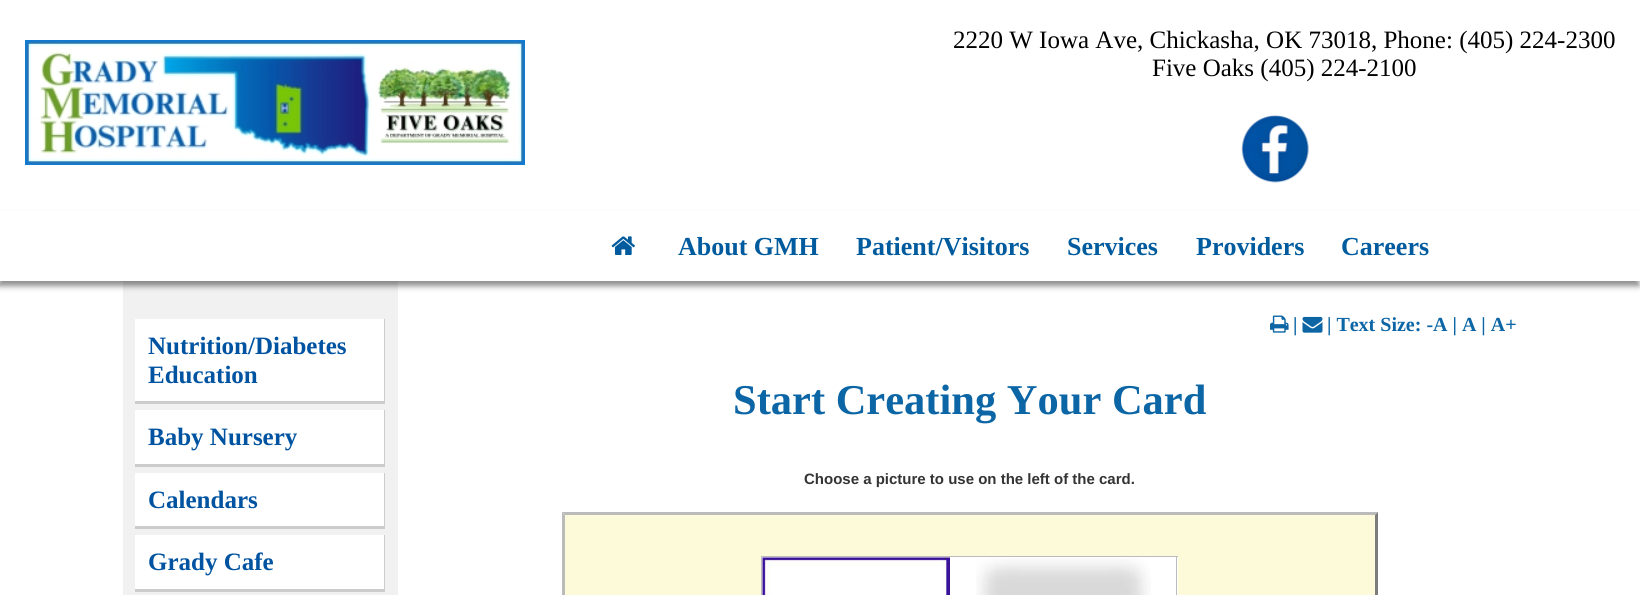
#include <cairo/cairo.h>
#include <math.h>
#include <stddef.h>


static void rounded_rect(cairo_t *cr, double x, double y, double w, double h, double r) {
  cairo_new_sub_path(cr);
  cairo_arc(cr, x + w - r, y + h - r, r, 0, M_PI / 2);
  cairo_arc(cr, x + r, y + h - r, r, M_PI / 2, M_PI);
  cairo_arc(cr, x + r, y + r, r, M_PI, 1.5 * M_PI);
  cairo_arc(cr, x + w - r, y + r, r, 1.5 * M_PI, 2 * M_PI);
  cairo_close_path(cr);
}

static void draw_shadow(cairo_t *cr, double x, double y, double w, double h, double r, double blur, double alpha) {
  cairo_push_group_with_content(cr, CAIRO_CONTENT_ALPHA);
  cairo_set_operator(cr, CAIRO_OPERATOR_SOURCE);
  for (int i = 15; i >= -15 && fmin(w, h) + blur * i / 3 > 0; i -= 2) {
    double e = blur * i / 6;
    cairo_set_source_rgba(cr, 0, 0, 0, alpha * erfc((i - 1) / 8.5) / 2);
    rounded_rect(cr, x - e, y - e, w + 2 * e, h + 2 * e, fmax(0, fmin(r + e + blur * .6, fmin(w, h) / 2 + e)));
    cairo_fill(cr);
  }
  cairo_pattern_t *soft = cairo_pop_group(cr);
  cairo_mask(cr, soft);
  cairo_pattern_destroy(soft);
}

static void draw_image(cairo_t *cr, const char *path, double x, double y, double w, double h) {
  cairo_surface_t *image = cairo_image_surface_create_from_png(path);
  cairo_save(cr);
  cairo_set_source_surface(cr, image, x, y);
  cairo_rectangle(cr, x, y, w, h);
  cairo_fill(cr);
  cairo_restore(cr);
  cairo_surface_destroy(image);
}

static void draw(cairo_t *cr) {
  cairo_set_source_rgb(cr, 1, 1, 1);
  cairo_paint(cr);
  draw_image(cr, "images/1.png", 25, 40, 500, 125);
  draw_image(cr, "images/2.png", 1241, 115, 68, 68);
  cairo_set_source_rgb(cr, 241 / 255.0, 241 / 255.0, 241 / 255.0);
  cairo_rectangle(cr, 123, 281, 275, 314);
  cairo_fill(cr);
  cairo_set_source_rgb(cr, 0, 0, 0);
  draw_shadow(cr, -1, 216, 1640, 70, 0, 3, 0.45);
  cairo_set_source_rgb(cr, 1, 1, 1);
  cairo_rectangle(cr, 0, 211, 1640, 70);
  cairo_fill(cr);
  draw_image(cr, "images/3.png", 611, 236, 24, 19);
  cairo_rectangle(cr, 135, 319, 249, 82);
  cairo_fill(cr);
  cairo_set_source_rgb(cr, 204 / 255.0, 204 / 255.0, 204 / 255.0);
  cairo_rectangle(cr, 384, 319, 1, 85);
  cairo_fill(cr);
  cairo_rectangle(cr, 135, 401, 250, 3);
  cairo_fill(cr);
  cairo_set_source_rgb(cr, 1, 1, 1);
  cairo_rectangle(cr, 135, 410, 249, 54);
  cairo_fill(cr);
  cairo_set_source_rgb(cr, 204 / 255.0, 204 / 255.0, 204 / 255.0);
  cairo_rectangle(cr, 384, 410, 1, 56);
  cairo_fill(cr);
  cairo_rectangle(cr, 135, 464, 250, 3);
  cairo_fill(cr);
  cairo_set_source_rgb(cr, 1, 1, 1);
  cairo_rectangle(cr, 135, 473, 249, 53);
  cairo_fill(cr);
  cairo_set_source_rgb(cr, 204 / 255.0, 204 / 255.0, 204 / 255.0);
  cairo_rectangle(cr, 384, 473, 1, 56);
  cairo_fill(cr);
  cairo_rectangle(cr, 135, 526, 250, 3);
  cairo_fill(cr);
  cairo_set_source_rgb(cr, 1, 1, 1);
  cairo_rectangle(cr, 135, 535, 249, 54);
  cairo_fill(cr);
  cairo_set_source_rgb(cr, 204 / 255.0, 204 / 255.0, 204 / 255.0);
  cairo_rectangle(cr, 384, 535, 1, 56);
  cairo_fill(cr);
  cairo_rectangle(cr, 135, 589, 250, 3);
  cairo_fill(cr);
  draw_image(cr, "images/4.png", 1270, 315, 19, 18);
  draw_image(cr, "images/5.png", 1302, 316, 21, 17);
  cairo_set_source_rgb(cr, 253 / 255.0, 250 / 255.0, 217 / 255.0);
  cairo_rectangle(cr, 563, 513, 814, 82);
  cairo_fill(cr);
  cairo_set_source_rgb(cr, 187 / 255.0, 187 / 255.0, 187 / 255.0);
  cairo_new_path(cr);
  cairo_move_to(cr, 562, 512);
  cairo_line_to(cr, 1378, 512);
  cairo_line_to(cr, 1375, 515);
  cairo_line_to(cr, 565, 515);
  cairo_close_path(cr);
  cairo_fill(cr);
  cairo_set_source_rgb(cr, 125 / 255.0, 125 / 255.0, 125 / 255.0);
  cairo_new_path(cr);
  cairo_move_to(cr, 1378, 512);
  cairo_line_to(cr, 1378, 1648);
  cairo_line_to(cr, 1375, 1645);
  cairo_line_to(cr, 1375, 515);
  cairo_close_path(cr);
  cairo_fill(cr);
  cairo_set_source_rgb(cr, 187 / 255.0, 187 / 255.0, 187 / 255.0);
  cairo_new_path(cr);
  cairo_move_to(cr, 562, 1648);
  cairo_line_to(cr, 562, 512);
  cairo_line_to(cr, 565, 515);
  cairo_line_to(cr, 565, 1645);
  cairo_close_path(cr);
  cairo_fill(cr);
  cairo_set_source_rgb(cr, 1, 1, 1);
  cairo_rectangle(cr, 762, 557, 416, 38);
  cairo_fill(cr);
  cairo_set_source_rgb(cr, 187 / 255.0, 187 / 255.0, 187 / 255.0);
  cairo_rectangle(cr, 761, 556, 417, 1);
  cairo_fill(cr);
  cairo_rectangle(cr, 1176, 556, 1, 39);
  cairo_fill(cr);
  cairo_rectangle(cr, 761, 556, 1, 39);
  cairo_fill(cr);
  draw_image(cr, "images/6.png", 762, 557, 188, 38);
  draw_image(cr, "images/7.png", 976, 558, 175, 37);
  cairo_select_font_face(cr, "Liberation Serif", CAIRO_FONT_SLANT_NORMAL, CAIRO_FONT_WEIGHT_NORMAL);
  cairo_set_font_size(cr, 25);
  cairo_set_source_rgb(cr, 0, 0, 0);
  cairo_move_to(cr, 953, 48);
  cairo_show_text(cr, "2220 W Iowa Ave, Chickasha, OK 73018, Phone: (405) 224-2300");
  cairo_move_to(cr, 1152, 76);
  cairo_show_text(cr, "Five Oaks (405) 224-2100");
  cairo_select_font_face(cr, "Liberation Serif", CAIRO_FONT_SLANT_NORMAL, CAIRO_FONT_WEIGHT_BOLD);
  cairo_set_font_size(cr, 26);
  cairo_set_source_rgb(cr, 0, 91 / 255.0, 158 / 255.0);
  cairo_move_to(cr, 678, 255);
  cairo_show_text(cr, "About GMH");
  cairo_move_to(cr, 856, 255);
  cairo_show_text(cr, "Patient/Visitors");
  cairo_move_to(cr, 1067, 255);
  cairo_show_text(cr, "Services");
  cairo_move_to(cr, 1196, 255);
  cairo_show_text(cr, "Providers");
  cairo_move_to(cr, 1341, 255);
  cairo_show_text(cr, "Careers");
  cairo_set_font_size(cr, 25);
  cairo_set_source_rgb(cr, 0, 83 / 255.0, 160 / 255.0);
  cairo_move_to(cr, 148, 354);
  cairo_show_text(cr, "Nutrition/Diabetes");
  cairo_move_to(cr, 148, 383);
  cairo_show_text(cr, "Education");
  cairo_move_to(cr, 148, 445);
  cairo_show_text(cr, "Baby Nursery");
  cairo_move_to(cr, 148, 508);
  cairo_show_text(cr, "Calendars");
  cairo_move_to(cr, 148, 570);
  cairo_show_text(cr, "Grady Cafe");
  cairo_set_font_size(cr, 20);
  cairo_set_source_rgb(cr, 12 / 255.0, 102 / 255.0, 165 / 255.0);
  cairo_move_to(cr, 1293, 331);
  cairo_show_text(cr, "|");
  cairo_move_to(cr, 1327, 331);
  cairo_show_text(cr, "| Text Size: -A | A | A+");
  cairo_set_font_size(cr, 42.5);
  cairo_move_to(cr, 733, 414);
  cairo_show_text(cr, "Start Creating Your Card");
  cairo_select_font_face(cr, "Liberation Sans", CAIRO_FONT_SLANT_NORMAL, CAIRO_FONT_WEIGHT_BOLD);
  cairo_set_font_size(cr, 15);
  cairo_set_source_rgb(cr, 52 / 255.0, 52 / 255.0, 52 / 255.0);
  cairo_move_to(cr, 804, 484);
  cairo_show_text(cr, "Choose a picture to use on the left of the card.");
}

int main(void) {
  cairo_surface_t *surface = cairo_image_surface_create(CAIRO_FORMAT_RGB24, 1640, 595);
  cairo_t *cr = cairo_create(surface);
  cairo_font_options_t *options = cairo_font_options_create();
  cairo_font_options_set_hint_metrics(options, CAIRO_HINT_METRICS_OFF);
  cairo_font_options_set_hint_style(options, CAIRO_HINT_STYLE_NONE);
  cairo_set_font_options(cr, options);
  cairo_set_miter_limit(cr, 4);
  draw(cr);
  cairo_surface_write_to_png(surface, "out.png");
  cairo_font_options_destroy(options);
  cairo_destroy(cr);
  cairo_surface_destroy(surface);
  return 0;
}
